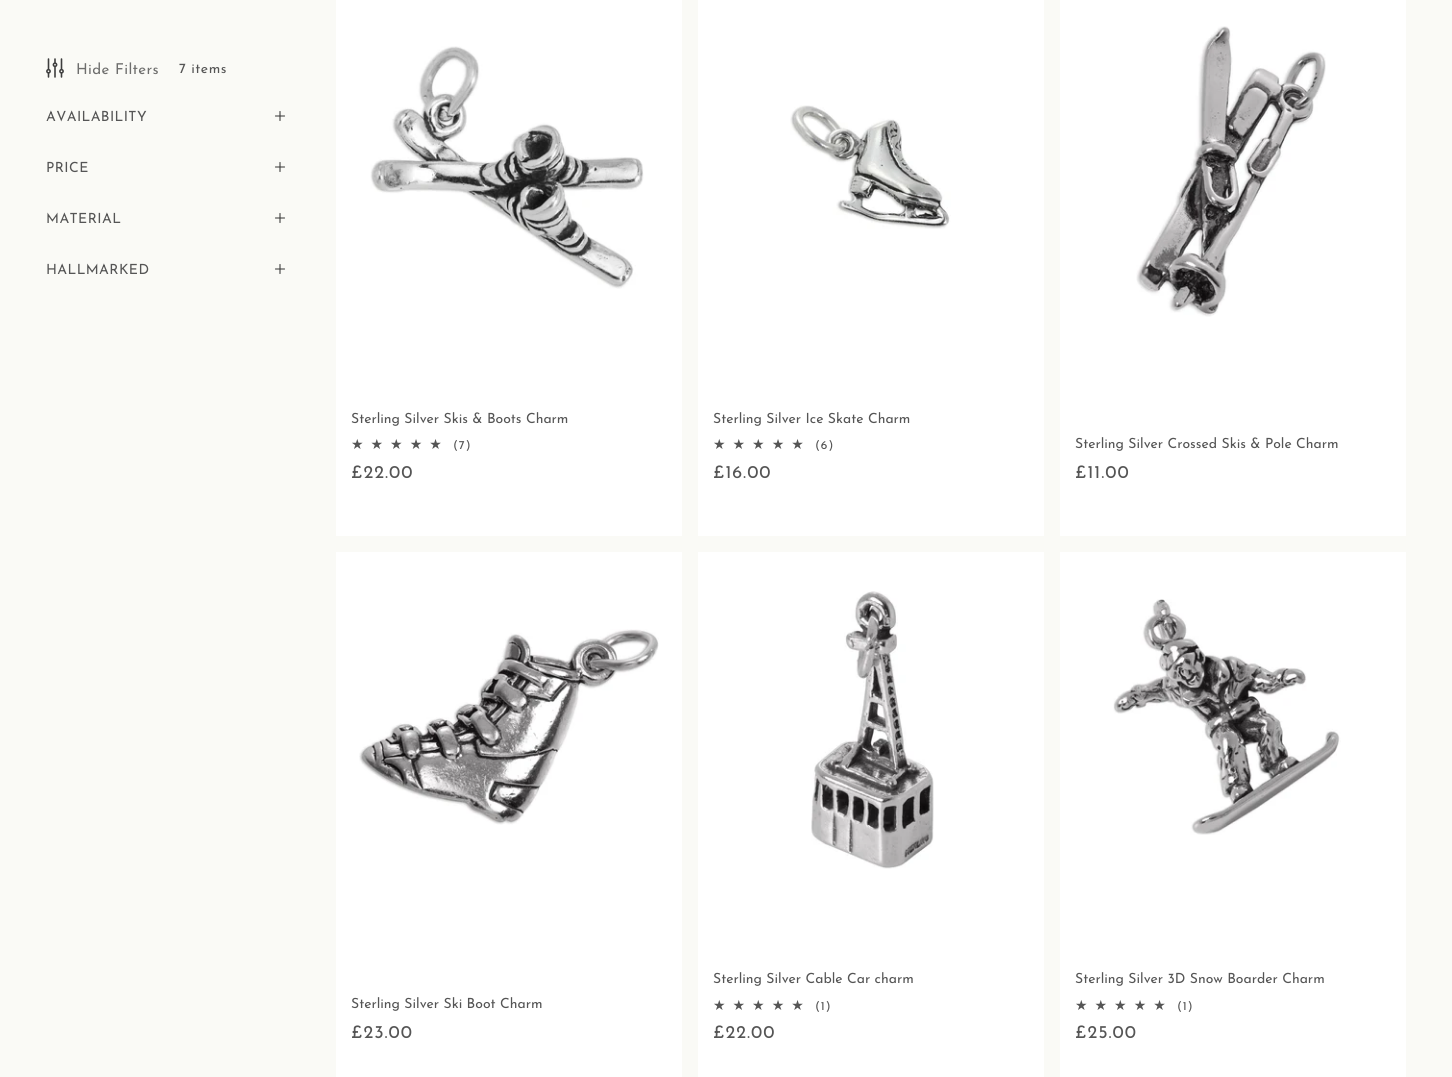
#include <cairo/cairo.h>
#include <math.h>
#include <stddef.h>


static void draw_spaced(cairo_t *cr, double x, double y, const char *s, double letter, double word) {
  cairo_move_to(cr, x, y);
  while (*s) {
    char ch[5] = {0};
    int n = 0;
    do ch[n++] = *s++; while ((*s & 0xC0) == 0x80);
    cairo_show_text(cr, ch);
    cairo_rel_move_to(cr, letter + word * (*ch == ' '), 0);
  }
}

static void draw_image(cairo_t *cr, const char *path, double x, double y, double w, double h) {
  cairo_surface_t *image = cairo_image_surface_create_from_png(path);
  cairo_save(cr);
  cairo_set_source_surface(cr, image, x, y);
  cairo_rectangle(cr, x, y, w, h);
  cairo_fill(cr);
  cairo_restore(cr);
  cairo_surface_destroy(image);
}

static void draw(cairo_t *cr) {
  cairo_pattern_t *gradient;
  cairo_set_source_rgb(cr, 250 / 255.0, 250 / 255.0, 246 / 255.0);
  cairo_paint(cr);
  draw_image(cr, "images/1.png", 46, 58, 18, 20);
  cairo_new_path(cr);
  cairo_move_to(cr, 280, 111.5);
  cairo_line_to(cr, 280, 120.5);
  cairo_move_to(cr, 284.5, 116);
  cairo_line_to(cr, 275.5, 116);
  cairo_set_source_rgb(cr, 61 / 255.0, 61 / 255.0, 61 / 255.0);
  cairo_set_line_width(cr, 1.1);
  cairo_set_line_cap(cr, CAIRO_LINE_CAP_ROUND);
  cairo_set_line_join(cr, CAIRO_LINE_JOIN_ROUND);
  cairo_stroke(cr);
  cairo_new_path(cr);
  cairo_move_to(cr, 280, 162.5);
  cairo_line_to(cr, 280, 171.5);
  cairo_move_to(cr, 284.5, 167);
  cairo_line_to(cr, 275.5, 167);
  cairo_stroke(cr);
  cairo_new_path(cr);
  cairo_move_to(cr, 280, 213.5);
  cairo_line_to(cr, 280, 222.5);
  cairo_move_to(cr, 284.5, 218);
  cairo_line_to(cr, 275.5, 218);
  cairo_stroke(cr);
  cairo_new_path(cr);
  cairo_move_to(cr, 280, 264.5);
  cairo_line_to(cr, 280, 273.5);
  cairo_move_to(cr, 284.5, 269);
  cairo_line_to(cr, 275.5, 269);
  cairo_stroke(cr);
  cairo_set_source_rgb(cr, 1, 1, 1);
  cairo_rectangle(cr, 336, 0, 346, 536);
  cairo_fill(cr);
  draw_image(cr, "images/2.png", 370, 46, 274, 243);
  cairo_rectangle(cr, 698, 0, 346, 536);
  cairo_fill(cr);
  draw_image(cr, "images/3.png", 790, 105, 161, 124);
  cairo_rectangle(cr, 1060, 0, 346, 536);
  cairo_fill(cr);
  draw_image(cr, "images/4.png", 1136, 26, 190, 291);
  cairo_rectangle(cr, 336, 552, 346, 525);
  cairo_fill(cr);
  draw_image(cr, "images/5.png", 359, 629, 300, 196);
  cairo_rectangle(cr, 698, 552, 346, 525);
  cairo_fill(cr);
  draw_image(cr, "images/6.png", 811, 591, 123, 278);
  cairo_rectangle(cr, 1060, 552, 346, 525);
  cairo_fill(cr);
  draw_image(cr, "images/7.png", 1113, 599, 228, 236);
  cairo_select_font_face(cr, "Josefin Sans", CAIRO_FONT_SLANT_NORMAL, CAIRO_FONT_WEIGHT_NORMAL);
  cairo_set_font_size(cr, 15);
  cairo_set_source_rgb(cr, 110 / 255.0, 110 / 255.0, 109 / 255.0);
  draw_spaced(cr, 76, 74, "Hide Filters", 0.4, 0);
  cairo_set_font_size(cr, 14);
  cairo_set_source_rgb(cr, 85 / 255.0, 85 / 255.0, 85 / 255.0);
  draw_spaced(cr, 179, 73, "7 items", 0.5, 0);
  draw_spaced(cr, 46, 121, "AVAILABILITY", 0.4, 0);
  draw_spaced(cr, 46, 172, "PRICE", 0.4, 0);
  draw_spaced(cr, 46, 223, "MATERIAL", 0.4, 0);
  draw_spaced(cr, 46, 274, "HALLMARKED", 0.4, 0);
  cairo_move_to(cr, 351, 423);
  cairo_show_text(cr, "Sterling Silver Skis & Boots Charm");
  cairo_select_font_face(cr, "DejaVu Sans", CAIRO_FONT_SLANT_NORMAL, CAIRO_FONT_WEIGHT_NORMAL);
  gradient = cairo_pattern_create_linear(351, 445, 449, 445);
  cairo_pattern_add_color_stop_rgba(gradient, 1, 85 / 255.0, 85 / 255.0, 85 / 255.0, 1);
  cairo_pattern_add_color_stop_rgba(gradient, 1, 230 / 255.0, 230 / 255.0, 230 / 255.0, 1);
  cairo_set_source(cr, gradient);
  cairo_pattern_destroy(gradient);
  draw_spaced(cr, 351, 449, "★★★★★", 7, 0);
  cairo_select_font_face(cr, "Josefin Sans", CAIRO_FONT_SLANT_NORMAL, CAIRO_FONT_WEIGHT_NORMAL);
  cairo_set_font_size(cr, 12);
  cairo_set_source_rgb(cr, 85 / 255.0, 85 / 255.0, 85 / 255.0);
  draw_spaced(cr, 453, 449, "(7)", 1, 0);
  cairo_set_font_size(cr, 18);
  draw_spaced(cr, 351, 478, "£22.00", 1, 0);
  cairo_set_font_size(cr, 14);
  cairo_move_to(cr, 713, 423);
  cairo_show_text(cr, "Sterling Silver Ice Skate Charm");
  cairo_select_font_face(cr, "DejaVu Sans", CAIRO_FONT_SLANT_NORMAL, CAIRO_FONT_WEIGHT_NORMAL);
  gradient = cairo_pattern_create_linear(713, 445, 811, 445);
  cairo_pattern_add_color_stop_rgba(gradient, 0.93, 85 / 255.0, 85 / 255.0, 85 / 255.0, 1);
  cairo_pattern_add_color_stop_rgba(gradient, 0.93, 230 / 255.0, 230 / 255.0, 230 / 255.0, 1);
  cairo_set_source(cr, gradient);
  cairo_pattern_destroy(gradient);
  draw_spaced(cr, 713, 449, "★★★★★", 7, 0);
  cairo_select_font_face(cr, "Josefin Sans", CAIRO_FONT_SLANT_NORMAL, CAIRO_FONT_WEIGHT_NORMAL);
  cairo_set_font_size(cr, 12);
  cairo_set_source_rgb(cr, 85 / 255.0, 85 / 255.0, 85 / 255.0);
  draw_spaced(cr, 815, 449, "(6)", 1, 0);
  cairo_set_font_size(cr, 18);
  draw_spaced(cr, 713, 478, "£16.00", 1, 0);
  cairo_set_font_size(cr, 14);
  cairo_move_to(cr, 1075, 448);
  cairo_show_text(cr, "Sterling Silver Crossed Skis & Pole Charm");
  cairo_set_font_size(cr, 18);
  draw_spaced(cr, 1075, 478, "£11.00", 1, 0);
  cairo_set_font_size(cr, 14);
  cairo_move_to(cr, 351, 1008);
  cairo_show_text(cr, "Sterling Silver Ski Boot Charm");
  cairo_set_font_size(cr, 18);
  draw_spaced(cr, 351, 1038, "£23.00", 1, 0);
  cairo_set_font_size(cr, 14);
  cairo_move_to(cr, 713, 983);
  cairo_show_text(cr, "Sterling Silver Cable Car charm");
  cairo_select_font_face(cr, "DejaVu Sans", CAIRO_FONT_SLANT_NORMAL, CAIRO_FONT_WEIGHT_NORMAL);
  gradient = cairo_pattern_create_linear(713, 1005, 811, 1005);
  cairo_pattern_add_color_stop_rgba(gradient, 1, 85 / 255.0, 85 / 255.0, 85 / 255.0, 1);
  cairo_pattern_add_color_stop_rgba(gradient, 1, 230 / 255.0, 230 / 255.0, 230 / 255.0, 1);
  cairo_set_source(cr, gradient);
  cairo_pattern_destroy(gradient);
  draw_spaced(cr, 713, 1010, "★★★★★", 7, 0);
  cairo_select_font_face(cr, "Josefin Sans", CAIRO_FONT_SLANT_NORMAL, CAIRO_FONT_WEIGHT_NORMAL);
  cairo_set_font_size(cr, 12);
  cairo_set_source_rgb(cr, 85 / 255.0, 85 / 255.0, 85 / 255.0);
  draw_spaced(cr, 815, 1010, "(1)", 1, 0);
  cairo_set_font_size(cr, 18);
  draw_spaced(cr, 713, 1038, "£22.00", 1, 0);
  cairo_set_font_size(cr, 14);
  cairo_move_to(cr, 1075, 983);
  cairo_show_text(cr, "Sterling Silver 3D Snow Boarder Charm");
  cairo_select_font_face(cr, "DejaVu Sans", CAIRO_FONT_SLANT_NORMAL, CAIRO_FONT_WEIGHT_NORMAL);
  gradient = cairo_pattern_create_linear(1075, 1005, 1173, 1005);
  cairo_pattern_add_color_stop_rgba(gradient, 1, 85 / 255.0, 85 / 255.0, 85 / 255.0, 1);
  cairo_pattern_add_color_stop_rgba(gradient, 1, 230 / 255.0, 230 / 255.0, 230 / 255.0, 1);
  cairo_set_source(cr, gradient);
  cairo_pattern_destroy(gradient);
  draw_spaced(cr, 1075, 1010, "★★★★★", 7, 0);
  cairo_select_font_face(cr, "Josefin Sans", CAIRO_FONT_SLANT_NORMAL, CAIRO_FONT_WEIGHT_NORMAL);
  cairo_set_font_size(cr, 12);
  cairo_set_source_rgb(cr, 85 / 255.0, 85 / 255.0, 85 / 255.0);
  draw_spaced(cr, 1177, 1010, "(1)", 1, 0);
  cairo_set_font_size(cr, 18);
  draw_spaced(cr, 1075, 1038, "£25.00", 1, 0);
}

int main(void) {
  cairo_surface_t *surface = cairo_image_surface_create(CAIRO_FORMAT_RGB24, 1452, 1077);
  cairo_t *cr = cairo_create(surface);
  cairo_font_options_t *options = cairo_font_options_create();
  cairo_font_options_set_hint_metrics(options, CAIRO_HINT_METRICS_OFF);
  cairo_font_options_set_hint_style(options, CAIRO_HINT_STYLE_NONE);
  cairo_set_font_options(cr, options);
  cairo_set_miter_limit(cr, 4);
  draw(cr);
  cairo_surface_write_to_png(surface, "out.png");
  cairo_font_options_destroy(options);
  cairo_destroy(cr);
  cairo_surface_destroy(surface);
  return 0;
}
